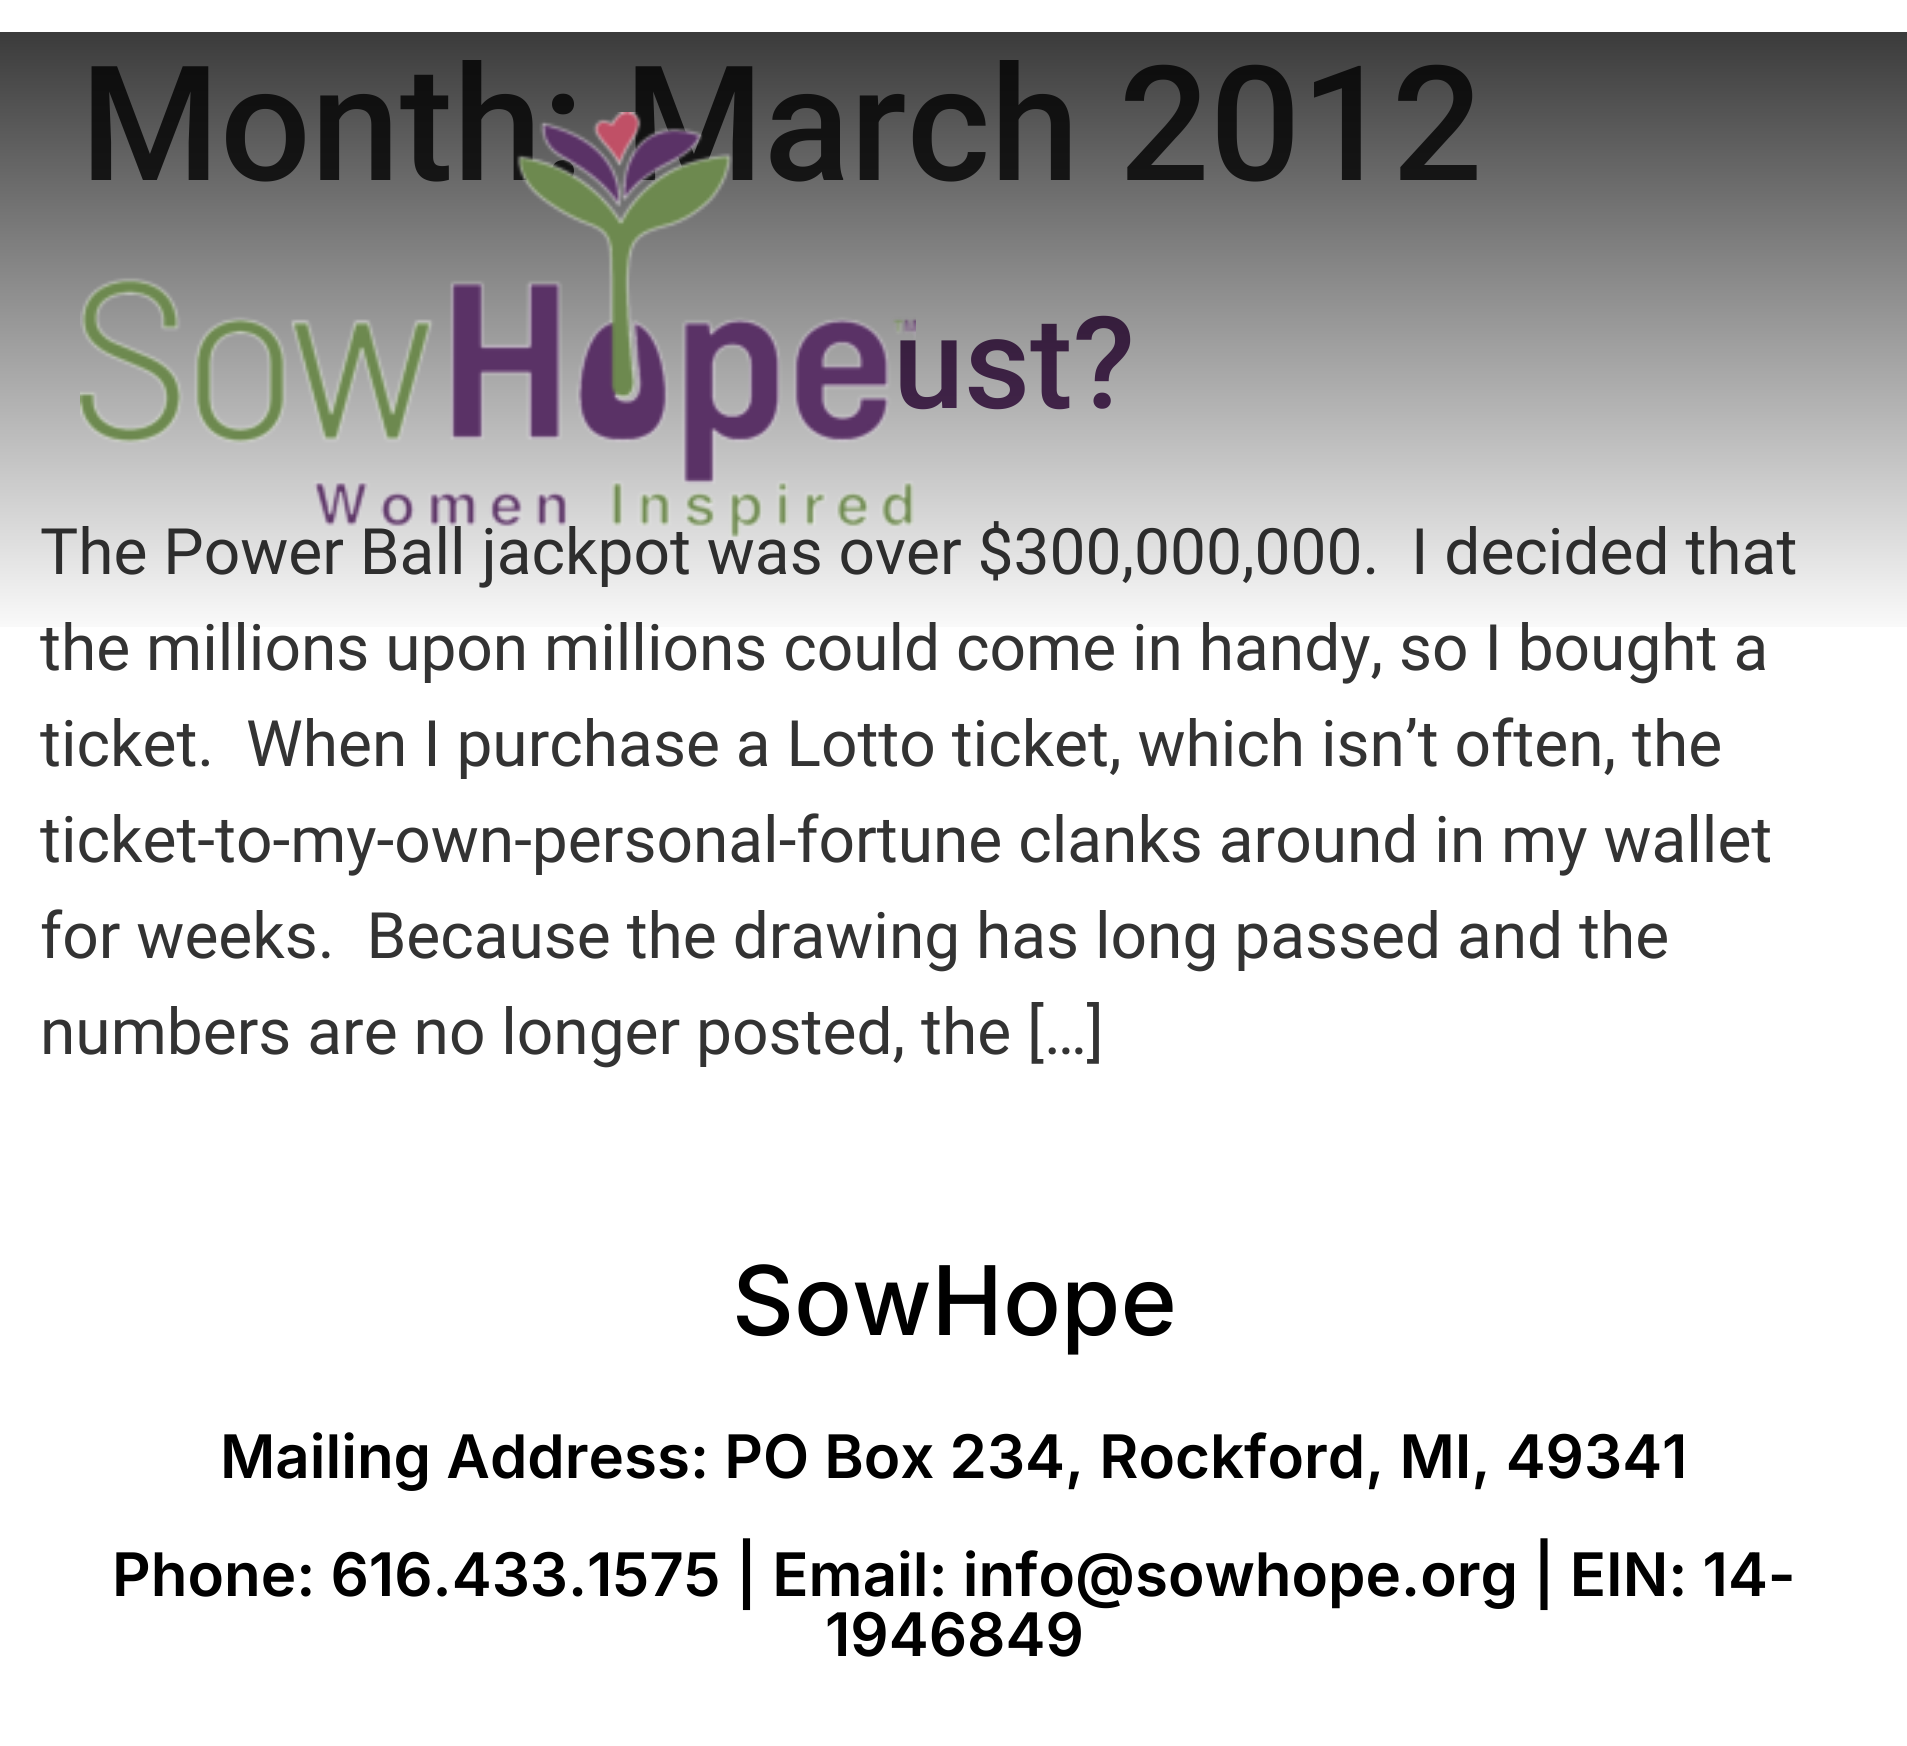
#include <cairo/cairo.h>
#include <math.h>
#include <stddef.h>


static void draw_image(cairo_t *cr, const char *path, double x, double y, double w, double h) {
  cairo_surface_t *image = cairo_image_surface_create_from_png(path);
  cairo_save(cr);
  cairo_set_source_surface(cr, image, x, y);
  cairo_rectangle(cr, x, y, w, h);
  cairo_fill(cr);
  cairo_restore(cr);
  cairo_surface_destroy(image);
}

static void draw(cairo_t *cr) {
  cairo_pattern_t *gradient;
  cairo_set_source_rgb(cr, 1, 1, 1);
  cairo_paint(cr);
  cairo_select_font_face(cr, "Roboto Medium", CAIRO_FONT_SLANT_NORMAL, CAIRO_FONT_WEIGHT_NORMAL);
  cairo_set_font_size(cr, 160);
  cairo_set_source_rgb(cr, 51 / 255.0, 51 / 255.0, 51 / 255.0);
  cairo_move_to(cr, 80, 180);
  cairo_show_text(cr, "Month: March 2012");
  cairo_set_font_size(cr, 128);
  cairo_set_source_rgb(cr, 91 / 255.0, 50 / 255.0, 102 / 255.0);
  cairo_move_to(cr, 893, 408);
  cairo_show_text(cr, "ust?");
  cairo_select_font_face(cr, "Roboto", CAIRO_FONT_SLANT_NORMAL, CAIRO_FONT_WEIGHT_NORMAL);
  cairo_set_font_size(cr, 64);
  cairo_set_source_rgb(cr, 51 / 255.0, 51 / 255.0, 51 / 255.0);
  cairo_move_to(cr, 40, 574);
  cairo_show_text(cr, "The Power Ball jackpot was over $300,000,000.  I decided that");
  cairo_move_to(cr, 40, 670);
  cairo_show_text(cr, "the millions upon millions could come in handy, so I bought a");
  gradient = cairo_pattern_create_linear(954, 32, 954, 644);
  cairo_pattern_add_color_stop_rgba(gradient, 0, 0, 0, 0, 0.77);
  cairo_pattern_add_color_stop_rgba(gradient, 1, 0, 0, 0, 0);
  cairo_set_source(cr, gradient);
  cairo_pattern_destroy(gradient);
  cairo_rectangle(cr, 0, 32, 1907, 595);
  cairo_fill(cr);
  draw_image(cr, "images/1.png", 80, 112, 836, 426);
  cairo_set_source_rgb(cr, 51 / 255.0, 51 / 255.0, 51 / 255.0);
  cairo_move_to(cr, 40, 766);
  cairo_show_text(cr, "ticket.  When I purchase a Lotto ticket, which isn’t often, the");
  cairo_move_to(cr, 40, 862);
  cairo_show_text(cr, "ticket-to-my-own-personal-fortune clanks around in my wallet");
  cairo_move_to(cr, 40, 958);
  cairo_show_text(cr, "for weeks.  Because the drawing has long passed and the");
  cairo_move_to(cr, 40, 1054);
  cairo_show_text(cr, "numbers are no longer posted, the […]");
  cairo_select_font_face(cr, "Inter Medium", CAIRO_FONT_SLANT_NORMAL, CAIRO_FONT_WEIGHT_NORMAL);
  cairo_set_font_size(cr, 96);
  cairo_set_source_rgb(cr, 0, 0, 0);
  cairo_move_to(cr, 732, 1335);
  cairo_show_text(cr, "SowHope");
  cairo_select_font_face(cr, "Inter SemiBold", CAIRO_FONT_SLANT_NORMAL, CAIRO_FONT_WEIGHT_NORMAL);
  cairo_set_font_size(cr, 60);
  cairo_move_to(cr, 220, 1478);
  cairo_show_text(cr, "Mailing Address: PO Box 234, Rockford, MI, 49341");
  cairo_move_to(cr, 112, 1596);
  cairo_show_text(cr, "Phone: 616.433.1575 | Email: info@sowhope.org | EIN: 14-");
  cairo_move_to(cr, 825, 1656);
  cairo_show_text(cr, "1946849");
}

int main(void) {
  cairo_surface_t *surface = cairo_image_surface_create(CAIRO_FORMAT_RGB24, 1907, 1746);
  cairo_t *cr = cairo_create(surface);
  cairo_font_options_t *options = cairo_font_options_create();
  cairo_font_options_set_hint_metrics(options, CAIRO_HINT_METRICS_OFF);
  cairo_font_options_set_hint_style(options, CAIRO_HINT_STYLE_NONE);
  cairo_set_font_options(cr, options);
  cairo_set_miter_limit(cr, 4);
  draw(cr);
  cairo_surface_write_to_png(surface, "out.png");
  cairo_font_options_destroy(options);
  cairo_destroy(cr);
  cairo_surface_destroy(surface);
  return 0;
}
